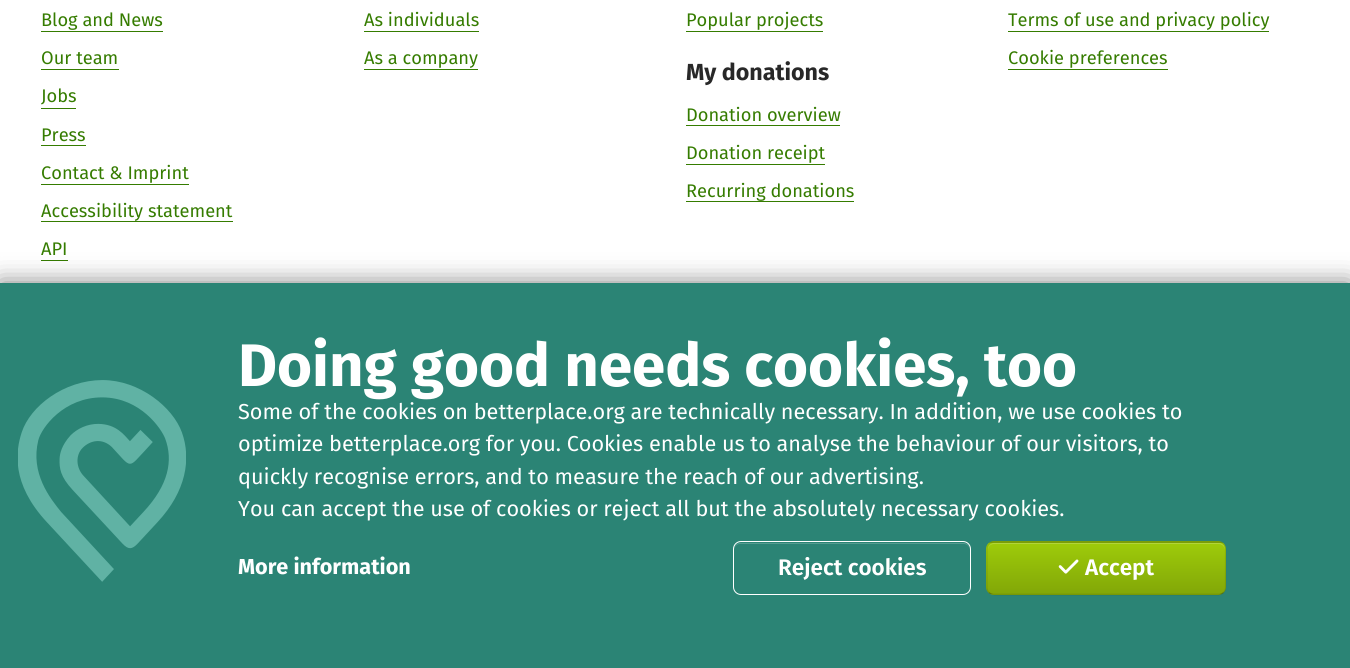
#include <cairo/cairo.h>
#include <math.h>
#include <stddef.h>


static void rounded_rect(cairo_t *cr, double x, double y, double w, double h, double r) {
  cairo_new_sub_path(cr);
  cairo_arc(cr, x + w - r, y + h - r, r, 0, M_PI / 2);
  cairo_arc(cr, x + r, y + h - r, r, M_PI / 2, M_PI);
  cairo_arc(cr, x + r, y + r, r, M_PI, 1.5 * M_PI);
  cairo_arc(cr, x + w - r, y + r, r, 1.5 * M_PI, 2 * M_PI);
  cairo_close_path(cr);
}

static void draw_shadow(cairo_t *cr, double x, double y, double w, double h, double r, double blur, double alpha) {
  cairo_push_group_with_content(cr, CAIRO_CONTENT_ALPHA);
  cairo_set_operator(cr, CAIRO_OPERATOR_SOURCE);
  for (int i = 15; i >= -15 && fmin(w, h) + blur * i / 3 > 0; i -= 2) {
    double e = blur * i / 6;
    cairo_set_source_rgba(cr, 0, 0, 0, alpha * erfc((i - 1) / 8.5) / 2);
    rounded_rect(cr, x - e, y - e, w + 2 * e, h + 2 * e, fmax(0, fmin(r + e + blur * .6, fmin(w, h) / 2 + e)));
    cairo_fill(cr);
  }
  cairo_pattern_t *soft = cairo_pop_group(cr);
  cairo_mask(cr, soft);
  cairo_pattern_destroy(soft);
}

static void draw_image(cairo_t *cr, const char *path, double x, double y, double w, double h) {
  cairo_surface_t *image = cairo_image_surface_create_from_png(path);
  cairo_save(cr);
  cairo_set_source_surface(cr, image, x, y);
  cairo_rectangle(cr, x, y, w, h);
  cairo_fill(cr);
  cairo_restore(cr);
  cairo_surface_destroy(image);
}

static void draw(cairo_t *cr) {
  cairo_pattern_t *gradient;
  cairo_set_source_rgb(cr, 1, 1, 1);
  cairo_paint(cr);
  cairo_set_source_rgb(cr, 53 / 255.0, 124 / 255.0, 0);
  cairo_rectangle(cr, 41, 31, 122, 1);
  cairo_fill(cr);
  cairo_rectangle(cr, 41, 69, 78, 1);
  cairo_fill(cr);
  cairo_rectangle(cr, 41, 108, 35, 1);
  cairo_fill(cr);
  cairo_rectangle(cr, 41, 145, 45, 1);
  cairo_fill(cr);
  cairo_rectangle(cr, 41, 184, 148, 1);
  cairo_fill(cr);
  cairo_rectangle(cr, 41, 221, 192, 1);
  cairo_fill(cr);
  cairo_rectangle(cr, 41, 260, 27, 1);
  cairo_fill(cr);
  cairo_rectangle(cr, 364, 31, 115, 1);
  cairo_fill(cr);
  cairo_rectangle(cr, 364, 69, 114, 1);
  cairo_fill(cr);
  cairo_rectangle(cr, 686, 31, 137, 1);
  cairo_fill(cr);
  cairo_rectangle(cr, 686, 125, 154, 1);
  cairo_fill(cr);
  cairo_rectangle(cr, 686, 164, 139, 1);
  cairo_fill(cr);
  cairo_rectangle(cr, 686, 201, 168, 1);
  cairo_fill(cr);
  cairo_rectangle(cr, 1008, 31, 261, 1);
  cairo_fill(cr);
  cairo_rectangle(cr, 1008, 69, 160, 1);
  cairo_fill(cr);
  cairo_set_source_rgb(cr, 0, 0, 0);
  draw_shadow(cr, 0, 283, 1350, 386, 0, 12.5, 0.5);
  cairo_set_source_rgb(cr, 43 / 255.0, 132 / 255.0, 117 / 255.0);
  cairo_rectangle(cr, 0, 283, 1350, 385);
  cairo_fill(cr);
  draw_image(cr, "images/1.png", 18, 380, 168, 202);
  cairo_set_source_rgb(cr, 85 / 255.0, 157 / 255.0, 145 / 255.0);
  cairo_new_path(cr);
  cairo_move_to(cr, 740, 544);
  cairo_line_to(cr, 964, 544);
  cairo_curve_to(cr, 967, 544, 970, 547, 970, 550);
  cairo_line_to(cr, 970, 549);
  cairo_curve_to(cr, 970, 546, 967, 543, 964, 543);
  cairo_line_to(cr, 740, 543);
  cairo_curve_to(cr, 737, 543, 734, 546, 734, 549);
  cairo_line_to(cr, 734, 550);
  cairo_curve_to(cr, 734, 547, 737, 544, 740, 544);
  cairo_close_path(cr);
  cairo_fill(cr);
  rounded_rect(cr, 733.5, 541.5, 237, 53, 7.5);
  cairo_set_source_rgb(cr, 1, 1, 1);
  cairo_set_line_width(cr, 1);
  cairo_stroke(cr);
  cairo_save(cr);
  rounded_rect(cr, 986, 541, 240, 54, 8);
  cairo_clip(cr);
  gradient = cairo_pattern_create_linear(1106, 491, 1106, 543);
  cairo_pattern_add_color_stop_rgba(gradient, 0, 158 / 255.0, 203 / 255.0, 10 / 255.0, 1);
  cairo_pattern_add_color_stop_rgba(gradient, 1, 130 / 255.0, 167 / 255.0, 8 / 255.0, 1);
  cairo_set_source(cr, gradient);
  cairo_pattern_destroy(gradient);
  cairo_rectangle(cr, 986, 541, 240, 2);
  cairo_fill(cr);
  gradient = cairo_pattern_create_linear(1106, 543, 1106, 594);
  cairo_pattern_add_color_stop_rgba(gradient, 0, 158 / 255.0, 203 / 255.0, 10 / 255.0, 1);
  cairo_pattern_add_color_stop_rgba(gradient, 1, 130 / 255.0, 167 / 255.0, 8 / 255.0, 1);
  cairo_set_source(cr, gradient);
  cairo_pattern_destroy(gradient);
  cairo_rectangle(cr, 986, 543, 240, 51);
  cairo_fill(cr);
  gradient = cairo_pattern_create_linear(1106, 594, 1106, 645);
  cairo_pattern_add_color_stop_rgba(gradient, 0, 158 / 255.0, 203 / 255.0, 10 / 255.0, 1);
  cairo_pattern_add_color_stop_rgba(gradient, 1, 130 / 255.0, 167 / 255.0, 8 / 255.0, 1);
  cairo_set_source(cr, gradient);
  cairo_pattern_destroy(gradient);
  cairo_rectangle(cr, 986, 594, 240, 1);
  cairo_fill(cr);
  cairo_restore(cr);
  cairo_set_source_rgb(cr, 177 / 255.0, 213 / 255.0, 59 / 255.0);
  cairo_new_path(cr);
  cairo_move_to(cr, 994, 544);
  cairo_line_to(cr, 1219, 544);
  cairo_curve_to(cr, 1222, 544, 1225, 547, 1225, 550);
  cairo_line_to(cr, 1225, 549);
  cairo_curve_to(cr, 1225, 546, 1222, 543, 1219, 543);
  cairo_line_to(cr, 994, 543);
  cairo_curve_to(cr, 991, 543, 988, 546, 988, 549);
  cairo_line_to(cr, 988, 550);
  cairo_curve_to(cr, 988, 547, 990, 544, 994, 544);
  cairo_close_path(cr);
  cairo_fill(cr);
  cairo_new_path(cr);
  cairo_move_to(cr, 1223.5, 592.5);
  cairo_curve_to(cr, 1222.5, 593.5, 1220.5, 594.5, 1219, 594.5);
  cairo_line_to(cr, 994, 594.5);
  cairo_curve_to(cr, 992, 594.5, 990, 593.5, 989, 592.5);
  cairo_set_source_rgba(cr, 0, 0, 0, 0.25);
  cairo_set_line_width(cr, 1.2);
  cairo_stroke(cr);
  cairo_new_path(cr);
  cairo_move_to(cr, 989, 592.5);
  cairo_curve_to(cr, 987.5, 591, 987, 589.5, 987, 587.5);
  cairo_line_to(cr, 987, 549);
  cairo_curve_to(cr, 987, 547, 987.5, 545, 989, 544);
  cairo_curve_to(cr, 990, 542.5, 992, 542, 994, 542);
  cairo_line_to(cr, 1219, 542);
  cairo_curve_to(cr, 1220.5, 542, 1222.5, 542.5, 1223.5, 544);
  cairo_curve_to(cr, 1225, 545, 1225.5, 547, 1225.5, 549);
  cairo_line_to(cr, 1225.5, 587.5);
  cairo_curve_to(cr, 1225.5, 589.5, 1225, 591, 1223.5, 592.5);
  cairo_set_source_rgba(cr, 0, 0, 0, 0.1);
  cairo_stroke(cr);
  draw_image(cr, "images/2.png", 1058, 559, 21, 15);
  cairo_select_font_face(cr, "Fira Sans", CAIRO_FONT_SLANT_NORMAL, CAIRO_FONT_WEIGHT_NORMAL);
  cairo_set_font_size(cr, 18.25);
  cairo_set_source_rgb(cr, 53 / 255.0, 124 / 255.0, 0);
  cairo_move_to(cr, 41, 26);
  cairo_show_text(cr, "Blog and News");
  cairo_move_to(cr, 41, 64);
  cairo_show_text(cr, "Our team");
  cairo_move_to(cr, 41, 102);
  cairo_show_text(cr, "Jobs");
  cairo_move_to(cr, 41, 141);
  cairo_show_text(cr, "Press");
  cairo_move_to(cr, 41, 179);
  cairo_show_text(cr, "Contact & Imprint");
  cairo_move_to(cr, 41, 217);
  cairo_show_text(cr, "Accessibility statement");
  cairo_move_to(cr, 41, 255);
  cairo_show_text(cr, "API");
  cairo_move_to(cr, 364, 26);
  cairo_show_text(cr, "As individuals");
  cairo_move_to(cr, 364, 64);
  cairo_show_text(cr, "As a company");
  cairo_move_to(cr, 686, 26);
  cairo_show_text(cr, "Popular projects");
  cairo_select_font_face(cr, "Fira Sans", CAIRO_FONT_SLANT_NORMAL, CAIRO_FONT_WEIGHT_BOLD);
  cairo_set_font_size(cr, 23.25);
  cairo_set_source_rgb(cr, 40 / 255.0, 40 / 255.0, 40 / 255.0);
  cairo_move_to(cr, 686, 80);
  cairo_show_text(cr, "My donations");
  cairo_select_font_face(cr, "Fira Sans", CAIRO_FONT_SLANT_NORMAL, CAIRO_FONT_WEIGHT_NORMAL);
  cairo_set_font_size(cr, 18.25);
  cairo_set_source_rgb(cr, 53 / 255.0, 124 / 255.0, 0);
  cairo_move_to(cr, 686, 121);
  cairo_show_text(cr, "Donation overview");
  cairo_move_to(cr, 686, 159);
  cairo_show_text(cr, "Donation receipt");
  cairo_move_to(cr, 686, 197);
  cairo_show_text(cr, "Recurring donations");
  cairo_move_to(cr, 1008, 26);
  cairo_show_text(cr, "Terms of use and privacy policy");
  cairo_move_to(cr, 1008, 64);
  cairo_show_text(cr, "Cookie preferences");
  cairo_select_font_face(cr, "Fira Sans", CAIRO_FONT_SLANT_NORMAL, CAIRO_FONT_WEIGHT_BOLD);
  cairo_set_font_size(cr, 60);
  cairo_set_source_rgb(cr, 1, 1, 1);
  cairo_move_to(cr, 238, 386);
  cairo_show_text(cr, "Doing good needs cookies, too");
  cairo_select_font_face(cr, "Fira Sans", CAIRO_FONT_SLANT_NORMAL, CAIRO_FONT_WEIGHT_NORMAL);
  cairo_set_font_size(cr, 21.65);
  cairo_move_to(cr, 238, 419);
  cairo_show_text(cr, "Some of the cookies on betterplace.org are technically necessary. In addition, we use cookies to");
  cairo_move_to(cr, 238, 451);
  cairo_show_text(cr, "optimize betterplace.org for you. Cookies enable us to analyse the behaviour of our visitors, to");
  cairo_move_to(cr, 238, 484);
  cairo_show_text(cr, "quickly recognise errors, and to measure the reach of our advertising.");
  cairo_move_to(cr, 238, 516);
  cairo_show_text(cr, "You can accept the use of cookies or reject all but the absolutely necessary cookies.");
  cairo_select_font_face(cr, "Fira Sans", CAIRO_FONT_SLANT_NORMAL, CAIRO_FONT_WEIGHT_BOLD);
  cairo_move_to(cr, 238, 574);
  cairo_show_text(cr, "More information");
  cairo_select_font_face(cr, "Fira Sans SemiBold", CAIRO_FONT_SLANT_NORMAL, CAIRO_FONT_WEIGHT_NORMAL);
  cairo_set_font_size(cr, 22.5);
  cairo_move_to(cr, 778, 575);
  cairo_show_text(cr, "Reject cookies");
  cairo_move_to(cr, 1085, 575);
  cairo_show_text(cr, "Accept");
}

int main(void) {
  cairo_surface_t *surface = cairo_image_surface_create(CAIRO_FORMAT_RGB24, 1350, 668);
  cairo_t *cr = cairo_create(surface);
  cairo_font_options_t *options = cairo_font_options_create();
  cairo_font_options_set_hint_metrics(options, CAIRO_HINT_METRICS_OFF);
  cairo_font_options_set_hint_style(options, CAIRO_HINT_STYLE_NONE);
  cairo_set_font_options(cr, options);
  cairo_set_miter_limit(cr, 4);
  draw(cr);
  cairo_surface_write_to_png(surface, "out.png");
  cairo_font_options_destroy(options);
  cairo_destroy(cr);
  cairo_surface_destroy(surface);
  return 0;
}
